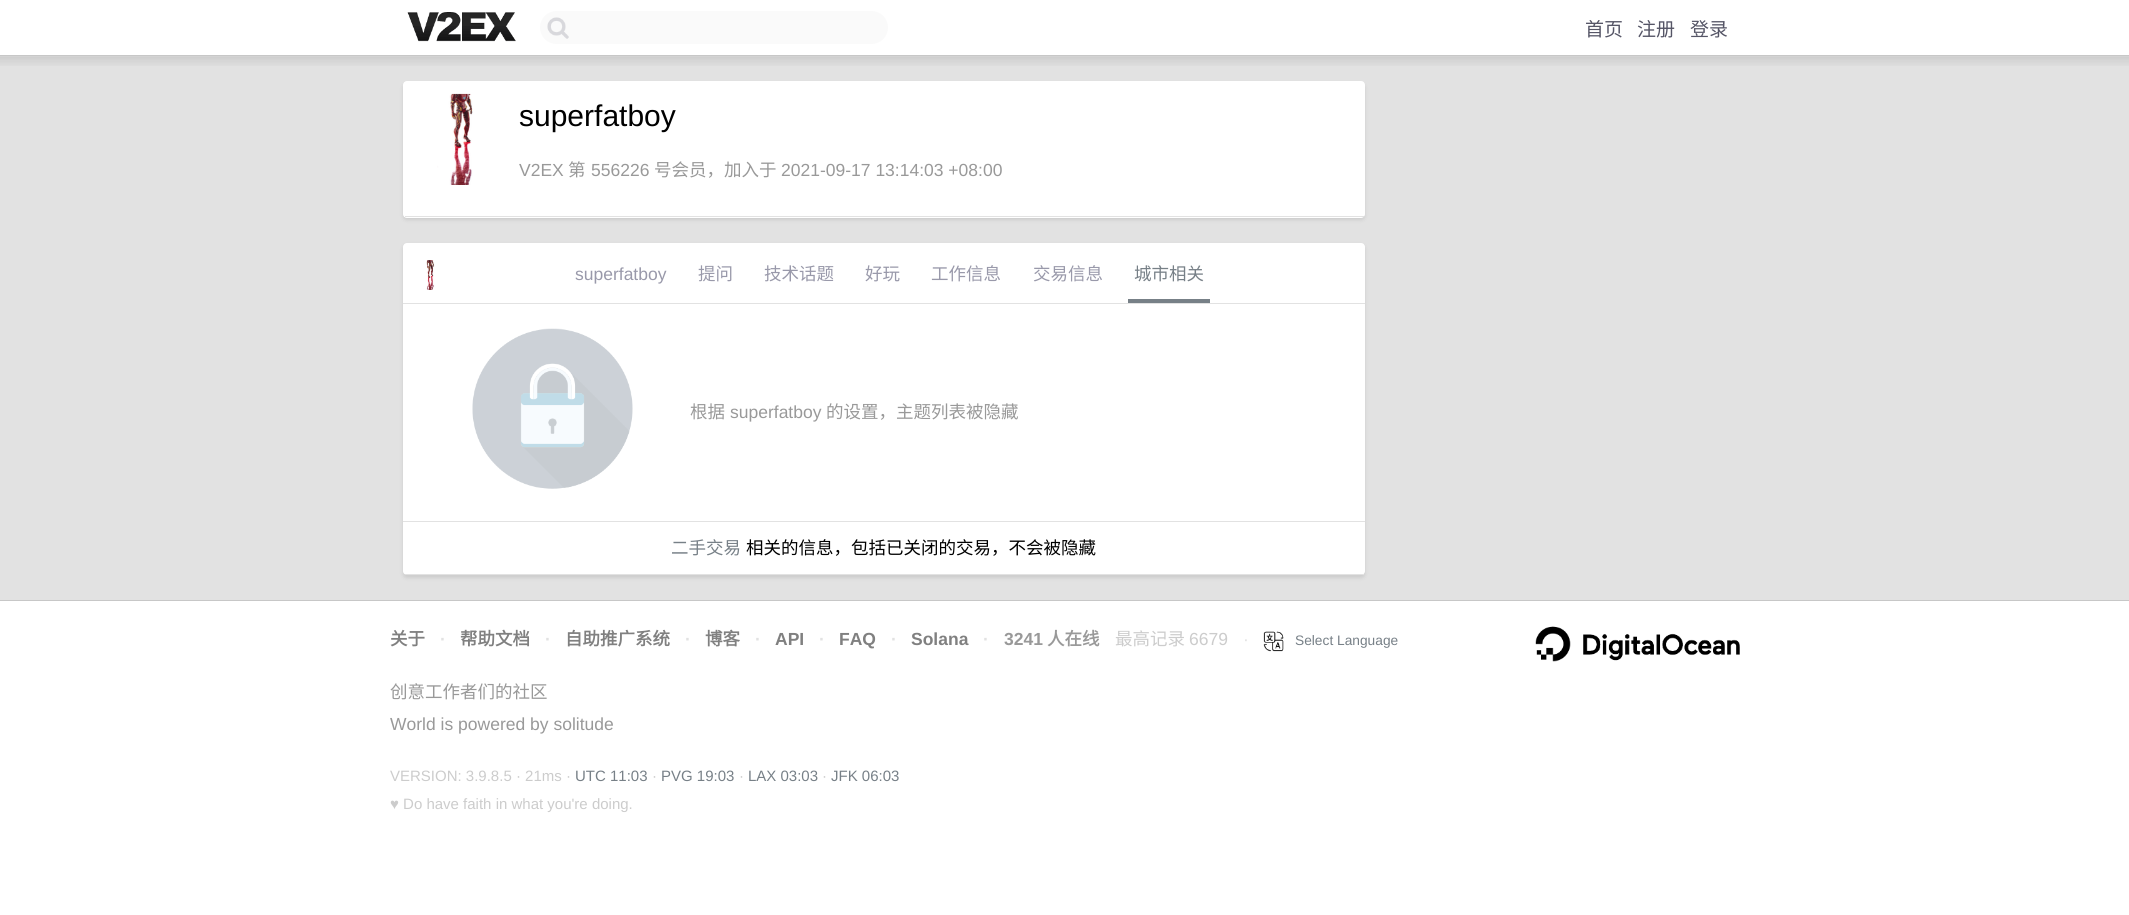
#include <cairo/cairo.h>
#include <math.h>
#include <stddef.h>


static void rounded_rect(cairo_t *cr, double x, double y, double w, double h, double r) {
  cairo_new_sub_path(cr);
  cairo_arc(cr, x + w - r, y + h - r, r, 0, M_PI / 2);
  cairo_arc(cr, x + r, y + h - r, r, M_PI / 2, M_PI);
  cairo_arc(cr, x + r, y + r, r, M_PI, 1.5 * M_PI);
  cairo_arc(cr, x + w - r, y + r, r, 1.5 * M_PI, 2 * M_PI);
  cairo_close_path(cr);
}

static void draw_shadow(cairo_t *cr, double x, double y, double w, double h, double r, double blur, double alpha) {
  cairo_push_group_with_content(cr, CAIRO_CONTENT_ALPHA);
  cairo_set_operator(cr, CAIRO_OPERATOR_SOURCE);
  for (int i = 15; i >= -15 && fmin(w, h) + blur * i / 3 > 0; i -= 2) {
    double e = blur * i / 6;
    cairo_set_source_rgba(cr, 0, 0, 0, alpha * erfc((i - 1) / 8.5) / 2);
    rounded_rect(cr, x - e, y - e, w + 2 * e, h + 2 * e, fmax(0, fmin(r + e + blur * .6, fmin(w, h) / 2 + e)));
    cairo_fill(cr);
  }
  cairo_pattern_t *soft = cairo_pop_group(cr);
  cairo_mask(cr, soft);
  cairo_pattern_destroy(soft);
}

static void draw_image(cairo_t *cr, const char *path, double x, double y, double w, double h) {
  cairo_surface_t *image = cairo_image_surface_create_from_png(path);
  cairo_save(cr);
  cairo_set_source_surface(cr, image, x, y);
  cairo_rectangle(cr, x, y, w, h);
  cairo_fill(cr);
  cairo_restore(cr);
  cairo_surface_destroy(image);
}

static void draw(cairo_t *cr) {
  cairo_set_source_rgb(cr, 1, 1, 1);
  cairo_paint(cr);
  cairo_set_source_rgb(cr, 199 / 255.0, 199 / 255.0, 199 / 255.0);
  cairo_rectangle(cr, 0, 55, 2129, 1);
  cairo_fill(cr);
  draw_image(cr, "images/1.png", 407, 12, 109, 30);
  cairo_set_source_rgb(cr, 250 / 255.0, 250 / 255.0, 250 / 255.0);
  rounded_rect(cr, 540, 11, 348, 33, 16.5);
  cairo_fill(cr);
  draw_image(cr, "images/2.png", 547, 17, 22, 22);
  cairo_set_source_rgb(cr, 226 / 255.0, 226 / 255.0, 226 / 255.0);
  cairo_rectangle(cr, 0, 56, 2129, 544);
  cairo_fill(cr);
  draw_image(cr, "images/3.png", 0, 56, 2129, 10);
  cairo_set_source_rgb(cr, 0, 0, 0);
  draw_shadow(cr, 403, 84, 962, 136, 4, 2, 0.1);
  cairo_set_source_rgb(cr, 1, 1, 1);
  rounded_rect(cr, 403, 81, 962, 137, 4);
  cairo_fill(cr);
  cairo_set_source_rgb(cr, 226 / 255.0, 226 / 255.0, 226 / 255.0);
  cairo_rectangle(cr, 405, 216, 959, 1);
  cairo_fill(cr);
  draw_image(cr, "images/4.png", 437, 93, 36, 92);
  cairo_set_source_rgb(cr, 0, 0, 0);
  draw_shadow(cr, 403, 245, 962, 333, 4, 2, 0.1);
  cairo_set_source_rgb(cr, 1, 1, 1);
  rounded_rect(cr, 403, 243, 962, 332, 4);
  cairo_fill(cr);
  cairo_set_source_rgb(cr, 226 / 255.0, 226 / 255.0, 226 / 255.0);
  cairo_rectangle(cr, 405, 574, 959, 1);
  cairo_fill(cr);
  cairo_rectangle(cr, 403, 303, 962, 1);
  cairo_fill(cr);
  draw_image(cr, "images/5.png", 426, 260, 9, 30);
  cairo_set_source_rgb(cr, 119 / 255.0, 128 / 255.0, 135 / 255.0);
  cairo_rectangle(cr, 1128, 299, 82, 4);
  cairo_fill(cr);
  cairo_set_source_rgb(cr, 226 / 255.0, 226 / 255.0, 226 / 255.0);
  cairo_rectangle(cr, 403, 521, 962, 1);
  cairo_fill(cr);
  draw_image(cr, "images/6.png", 472, 328, 161, 161);
  cairo_set_source_rgb(cr, 199 / 255.0, 199 / 255.0, 199 / 255.0);
  cairo_rectangle(cr, 0, 600, 2129, 1);
  cairo_fill(cr);
  draw_image(cr, "images/7.png", 1263, 631, 21, 21);
  draw_image(cr, "images/8.png", 1535, 626, 205, 36);
  cairo_select_font_face(cr, "Noto Sans CJK SC", CAIRO_FONT_SLANT_NORMAL, CAIRO_FONT_WEIGHT_NORMAL);
  cairo_set_font_size(cr, 19);
  cairo_set_source_rgb(cr, 85 / 255.0, 85 / 255.0, 102 / 255.0);
  cairo_move_to(cr, 1585, 36);
  cairo_show_text(cr, "首页");
  cairo_move_to(cr, 1637, 36);
  cairo_show_text(cr, "注册");
  cairo_move_to(cr, 1690, 36);
  cairo_show_text(cr, "登录");
  cairo_select_font_face(cr, "Liberation Sans", CAIRO_FONT_SLANT_NORMAL, CAIRO_FONT_WEIGHT_NORMAL);
  cairo_set_font_size(cr, 30);
  cairo_set_source_rgb(cr, 0, 0, 0);
  cairo_move_to(cr, 519, 126);
  cairo_show_text(cr, "superfatboy");
  cairo_set_font_size(cr, 17.5);
  cairo_set_source_rgb(cr, 153 / 255.0, 153 / 255.0, 153 / 255.0);
  cairo_move_to(cr, 519, 176);
  cairo_show_text(cr, "V2EX");
  cairo_select_font_face(cr, "Noto Sans CJK SC", CAIRO_FONT_SLANT_NORMAL, CAIRO_FONT_WEIGHT_NORMAL);
  cairo_move_to(cr, 568, 176);
  cairo_show_text(cr, "第");
  cairo_select_font_face(cr, "Liberation Sans", CAIRO_FONT_SLANT_NORMAL, CAIRO_FONT_WEIGHT_NORMAL);
  cairo_move_to(cr, 591, 176);
  cairo_show_text(cr, "556226");
  cairo_select_font_face(cr, "Noto Sans CJK SC", CAIRO_FONT_SLANT_NORMAL, CAIRO_FONT_WEIGHT_NORMAL);
  cairo_move_to(cr, 654, 176);
  cairo_show_text(cr, "号会员，加入于");
  cairo_select_font_face(cr, "Liberation Sans", CAIRO_FONT_SLANT_NORMAL, CAIRO_FONT_WEIGHT_NORMAL);
  cairo_move_to(cr, 781, 176);
  cairo_show_text(cr, "2021-09-17 13:14:03 +08:00");
  cairo_set_source_rgb(cr, 153 / 255.0, 153 / 255.0, 170 / 255.0);
  cairo_move_to(cr, 575, 280);
  cairo_show_text(cr, "superfatboy");
  cairo_select_font_face(cr, "Noto Sans CJK SC", CAIRO_FONT_SLANT_NORMAL, CAIRO_FONT_WEIGHT_NORMAL);
  cairo_move_to(cr, 698, 280);
  cairo_show_text(cr, "提问");
  cairo_move_to(cr, 764, 280);
  cairo_show_text(cr, "技术话题");
  cairo_move_to(cr, 865, 280);
  cairo_show_text(cr, "好玩");
  cairo_move_to(cr, 931, 280);
  cairo_show_text(cr, "工作信息");
  cairo_move_to(cr, 1033, 280);
  cairo_show_text(cr, "交易信息");
  cairo_set_source_rgb(cr, 119 / 255.0, 128 / 255.0, 135 / 255.0);
  cairo_move_to(cr, 1134, 280);
  cairo_show_text(cr, "城市相关");
  cairo_set_source_rgb(cr, 153 / 255.0, 153 / 255.0, 153 / 255.0);
  cairo_move_to(cr, 690, 418);
  cairo_show_text(cr, "根据");
  cairo_select_font_face(cr, "Liberation Sans", CAIRO_FONT_SLANT_NORMAL, CAIRO_FONT_WEIGHT_NORMAL);
  cairo_move_to(cr, 730, 418);
  cairo_show_text(cr, "superfatboy");
  cairo_select_font_face(cr, "Noto Sans CJK SC", CAIRO_FONT_SLANT_NORMAL, CAIRO_FONT_WEIGHT_NORMAL);
  cairo_move_to(cr, 826, 418);
  cairo_show_text(cr, "的设置，主题列表被隐藏");
  cairo_set_source_rgb(cr, 119 / 255.0, 128 / 255.0, 135 / 255.0);
  cairo_move_to(cr, 671, 554);
  cairo_show_text(cr, "二手交易");
  cairo_set_source_rgb(cr, 0, 0, 0);
  cairo_move_to(cr, 746, 554);
  cairo_show_text(cr, "相关的信息，包括已关闭的交易，不会被隐藏");
  cairo_select_font_face(cr, "Noto Sans CJK SC", CAIRO_FONT_SLANT_NORMAL, CAIRO_FONT_WEIGHT_BOLD);
  cairo_set_source_rgb(cr, 128 / 255.0, 128 / 255.0, 128 / 255.0);
  cairo_move_to(cr, 390, 645);
  cairo_show_text(cr, "关于");
  cairo_select_font_face(cr, "Liberation Sans", CAIRO_FONT_SLANT_NORMAL, CAIRO_FONT_WEIGHT_BOLD);
  cairo_set_source_rgb(cr, 226 / 255.0, 226 / 255.0, 226 / 255.0);
  cairo_move_to(cr, 440, 645);
  cairo_show_text(cr, "·");
  cairo_select_font_face(cr, "Noto Sans CJK SC", CAIRO_FONT_SLANT_NORMAL, CAIRO_FONT_WEIGHT_BOLD);
  cairo_set_source_rgb(cr, 128 / 255.0, 128 / 255.0, 128 / 255.0);
  cairo_move_to(cr, 460, 645);
  cairo_show_text(cr, "帮助文档");
  cairo_select_font_face(cr, "Liberation Sans", CAIRO_FONT_SLANT_NORMAL, CAIRO_FONT_WEIGHT_BOLD);
  cairo_set_source_rgb(cr, 226 / 255.0, 226 / 255.0, 226 / 255.0);
  cairo_move_to(cr, 545, 645);
  cairo_show_text(cr, "·");
  cairo_select_font_face(cr, "Noto Sans CJK SC", CAIRO_FONT_SLANT_NORMAL, CAIRO_FONT_WEIGHT_BOLD);
  cairo_set_source_rgb(cr, 128 / 255.0, 128 / 255.0, 128 / 255.0);
  cairo_move_to(cr, 565, 645);
  cairo_show_text(cr, "自助推广系统");
  cairo_select_font_face(cr, "Liberation Sans", CAIRO_FONT_SLANT_NORMAL, CAIRO_FONT_WEIGHT_BOLD);
  cairo_set_source_rgb(cr, 226 / 255.0, 226 / 255.0, 226 / 255.0);
  cairo_move_to(cr, 685, 645);
  cairo_show_text(cr, "·");
  cairo_select_font_face(cr, "Noto Sans CJK SC", CAIRO_FONT_SLANT_NORMAL, CAIRO_FONT_WEIGHT_BOLD);
  cairo_set_source_rgb(cr, 128 / 255.0, 128 / 255.0, 128 / 255.0);
  cairo_move_to(cr, 705, 645);
  cairo_show_text(cr, "博客");
  cairo_select_font_face(cr, "Liberation Sans", CAIRO_FONT_SLANT_NORMAL, CAIRO_FONT_WEIGHT_BOLD);
  cairo_set_source_rgb(cr, 226 / 255.0, 226 / 255.0, 226 / 255.0);
  cairo_move_to(cr, 755, 645);
  cairo_show_text(cr, "·");
  cairo_set_source_rgb(cr, 128 / 255.0, 128 / 255.0, 128 / 255.0);
  cairo_move_to(cr, 775, 645);
  cairo_show_text(cr, "API");
  cairo_set_source_rgb(cr, 226 / 255.0, 226 / 255.0, 226 / 255.0);
  cairo_move_to(cr, 819, 645);
  cairo_show_text(cr, "·");
  cairo_set_source_rgb(cr, 128 / 255.0, 128 / 255.0, 128 / 255.0);
  cairo_move_to(cr, 839, 645);
  cairo_show_text(cr, "FAQ");
  cairo_set_source_rgb(cr, 226 / 255.0, 226 / 255.0, 226 / 255.0);
  cairo_move_to(cr, 891, 645);
  cairo_show_text(cr, "·");
  cairo_set_source_rgb(cr, 128 / 255.0, 128 / 255.0, 128 / 255.0);
  cairo_move_to(cr, 911, 645);
  cairo_show_text(cr, "Solana");
  cairo_set_source_rgb(cr, 226 / 255.0, 226 / 255.0, 226 / 255.0);
  cairo_move_to(cr, 983, 645);
  cairo_show_text(cr, "·");
  cairo_set_source_rgb(cr, 153 / 255.0, 153 / 255.0, 153 / 255.0);
  cairo_move_to(cr, 1004, 645);
  cairo_show_text(cr, "3241");
  cairo_select_font_face(cr, "Noto Sans CJK SC", CAIRO_FONT_SLANT_NORMAL, CAIRO_FONT_WEIGHT_BOLD);
  cairo_move_to(cr, 1047, 645);
  cairo_show_text(cr, "人在线");
  cairo_select_font_face(cr, "Noto Sans CJK SC", CAIRO_FONT_SLANT_NORMAL, CAIRO_FONT_WEIGHT_NORMAL);
  cairo_set_source_rgb(cr, 204 / 255.0, 204 / 255.0, 204 / 255.0);
  cairo_move_to(cr, 1115, 645);
  cairo_show_text(cr, "最高记录");
  cairo_select_font_face(cr, "Liberation Sans", CAIRO_FONT_SLANT_NORMAL, CAIRO_FONT_WEIGHT_NORMAL);
  cairo_move_to(cr, 1189, 645);
  cairo_show_text(cr, "6679");
  cairo_set_source_rgb(cr, 226 / 255.0, 226 / 255.0, 226 / 255.0);
  cairo_move_to(cr, 1243, 645);
  cairo_show_text(cr, "·");
  cairo_set_font_size(cr, 13.75);
  cairo_set_source_rgb(cr, 119 / 255.0, 128 / 255.0, 135 / 255.0);
  cairo_move_to(cr, 1295, 645);
  cairo_show_text(cr, "Select Language");
  cairo_select_font_face(cr, "Noto Sans CJK SC", CAIRO_FONT_SLANT_NORMAL, CAIRO_FONT_WEIGHT_NORMAL);
  cairo_set_font_size(cr, 17.5);
  cairo_set_source_rgb(cr, 153 / 255.0, 153 / 255.0, 153 / 255.0);
  cairo_move_to(cr, 390, 698);
  cairo_show_text(cr, "创意工作者们的社区");
  cairo_select_font_face(cr, "Liberation Sans", CAIRO_FONT_SLANT_NORMAL, CAIRO_FONT_WEIGHT_NORMAL);
  cairo_move_to(cr, 390, 730);
  cairo_show_text(cr, "World is powered by solitude");
  cairo_set_font_size(cr, 15);
  cairo_set_source_rgb(cr, 204 / 255.0, 204 / 255.0, 204 / 255.0);
  cairo_move_to(cr, 390, 781);
  cairo_show_text(cr, "VERSION: 3.9.8.5 · 21ms ·");
  cairo_set_source_rgb(cr, 119 / 255.0, 128 / 255.0, 135 / 255.0);
  cairo_move_to(cr, 575, 781);
  cairo_show_text(cr, "UTC 11:03");
  cairo_set_source_rgb(cr, 204 / 255.0, 204 / 255.0, 204 / 255.0);
  cairo_move_to(cr, 652, 781);
  cairo_show_text(cr, "·");
  cairo_set_source_rgb(cr, 119 / 255.0, 128 / 255.0, 135 / 255.0);
  cairo_move_to(cr, 661, 781);
  cairo_show_text(cr, "PVG 19:03");
  cairo_set_source_rgb(cr, 204 / 255.0, 204 / 255.0, 204 / 255.0);
  cairo_move_to(cr, 739, 781);
  cairo_show_text(cr, "·");
  cairo_set_source_rgb(cr, 119 / 255.0, 128 / 255.0, 135 / 255.0);
  cairo_move_to(cr, 748, 781);
  cairo_show_text(cr, "LAX 03:03");
  cairo_set_source_rgb(cr, 204 / 255.0, 204 / 255.0, 204 / 255.0);
  cairo_move_to(cr, 822, 781);
  cairo_show_text(cr, "·");
  cairo_set_source_rgb(cr, 119 / 255.0, 128 / 255.0, 135 / 255.0);
  cairo_move_to(cr, 831, 781);
  cairo_show_text(cr, "JFK 06:03");
  cairo_set_source_rgb(cr, 204 / 255.0, 204 / 255.0, 204 / 255.0);
  cairo_move_to(cr, 390, 809);
  cairo_show_text(cr, "♥ Do have faith in what you're doing.");
}

int main(void) {
  cairo_surface_t *surface = cairo_image_surface_create(CAIRO_FORMAT_RGB24, 2129, 915);
  cairo_t *cr = cairo_create(surface);
  cairo_font_options_t *options = cairo_font_options_create();
  cairo_font_options_set_hint_metrics(options, CAIRO_HINT_METRICS_OFF);
  cairo_font_options_set_hint_style(options, CAIRO_HINT_STYLE_NONE);
  cairo_set_font_options(cr, options);
  cairo_set_miter_limit(cr, 4);
  draw(cr);
  cairo_surface_write_to_png(surface, "out.png");
  cairo_font_options_destroy(options);
  cairo_destroy(cr);
  cairo_surface_destroy(surface);
  return 0;
}
